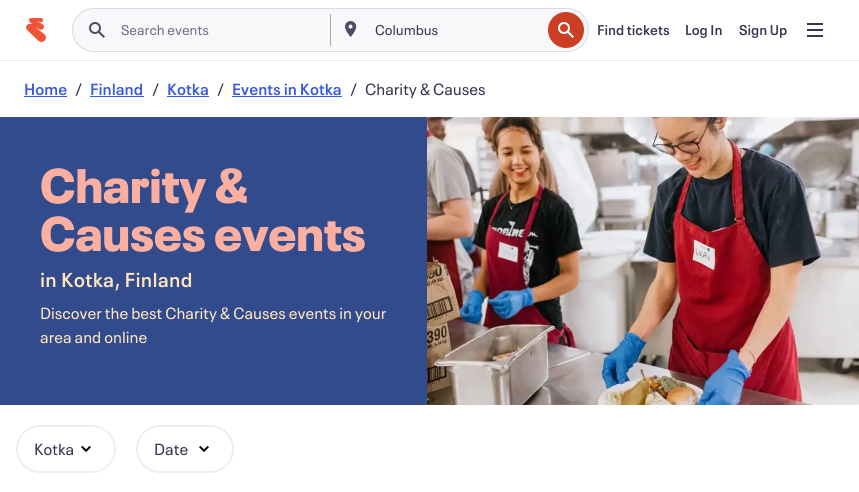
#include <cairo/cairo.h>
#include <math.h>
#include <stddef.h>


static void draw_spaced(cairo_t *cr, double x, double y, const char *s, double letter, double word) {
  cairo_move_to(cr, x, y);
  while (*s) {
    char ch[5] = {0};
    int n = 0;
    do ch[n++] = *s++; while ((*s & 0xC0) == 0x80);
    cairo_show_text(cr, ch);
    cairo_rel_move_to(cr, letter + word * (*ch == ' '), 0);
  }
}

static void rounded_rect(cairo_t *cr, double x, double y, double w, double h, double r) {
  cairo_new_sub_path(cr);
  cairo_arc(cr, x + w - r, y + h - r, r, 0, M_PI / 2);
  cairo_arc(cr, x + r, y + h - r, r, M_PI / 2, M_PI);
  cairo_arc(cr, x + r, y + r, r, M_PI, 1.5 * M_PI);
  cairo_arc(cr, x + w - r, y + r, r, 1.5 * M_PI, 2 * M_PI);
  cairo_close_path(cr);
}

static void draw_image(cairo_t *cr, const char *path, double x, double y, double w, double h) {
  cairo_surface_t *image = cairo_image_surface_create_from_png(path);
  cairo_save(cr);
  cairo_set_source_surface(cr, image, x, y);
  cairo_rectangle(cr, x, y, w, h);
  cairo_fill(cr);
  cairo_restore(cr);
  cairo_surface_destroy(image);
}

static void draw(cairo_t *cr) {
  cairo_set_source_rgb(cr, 1, 1, 1);
  cairo_paint(cr);
  cairo_set_source_rgb(cr, 238 / 255.0, 237 / 255.0, 242 / 255.0);
  cairo_rectangle(cr, 0, 60, 859, 1);
  cairo_fill(cr);
  draw_image(cr, "images/1.png", 26, 18, 20, 24);
  cairo_set_source_rgb(cr, 248 / 255.0, 247 / 255.0, 250 / 255.0);
  rounded_rect(cr, 72.5, 8.5, 516, 43, 21.5);
  cairo_fill_preserve(cr);
  cairo_set_source_rgb(cr, 219 / 255.0, 218 / 255.0, 227 / 255.0);
  cairo_set_line_width(cr, 1);
  cairo_stroke(cr);
  draw_image(cr, "images/2.png", 89, 22, 16, 16);
  cairo_set_source_rgb(cr, 169 / 255.0, 168 / 255.0, 179 / 255.0);
  cairo_rectangle(cr, 330, 14, 1, 32);
  cairo_fill(cr);
  draw_image(cr, "images/3.png", 345, 21, 12, 16);
  draw_image(cr, "images/4.png", 548, 12, 36, 36);
  draw_image(cr, "images/5.png", 807, 23, 16, 14);
  cairo_set_source_rgb(cr, 54 / 255.0, 89 / 255.0, 227 / 255.0);
  cairo_rectangle(cr, 24, 96, 43, 1);
  cairo_fill(cr);
  cairo_rectangle(cr, 90, 96, 54, 1);
  cairo_fill(cr);
  cairo_rectangle(cr, 167, 96, 42, 1);
  cairo_fill(cr);
  cairo_rectangle(cr, 232, 96, 110, 1);
  cairo_fill(cr);
  cairo_set_source_rgb(cr, 50 / 255.0, 75 / 255.0, 140 / 255.0);
  cairo_rectangle(cr, 0, 117, 427, 288);
  cairo_fill(cr);
  draw_image(cr, "images/6.png", 427, 117, 432, 288);
  rounded_rect(cr, 17, 426, 98, 46, 23);
  cairo_set_source_rgb(cr, 238 / 255.0, 237 / 255.0, 242 / 255.0);
  cairo_set_line_width(cr, 2);
  cairo_stroke(cr);
  draw_image(cr, "images/7.png", 81, 445, 10, 7);
  rounded_rect(cr, 137, 426, 96, 46, 23);
  cairo_stroke(cr);
  draw_image(cr, "images/7.png", 199, 445, 10, 7);
  cairo_select_font_face(cr, "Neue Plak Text", CAIRO_FONT_SLANT_NORMAL, CAIRO_FONT_WEIGHT_NORMAL);
  cairo_set_font_size(cr, 14);
  cairo_set_source_rgb(cr, 111 / 255.0, 114 / 255.0, 135 / 255.0);
  cairo_move_to(cr, 121, 35);
  cairo_show_text(cr, "Search events");
  cairo_set_source_rgb(cr, 57 / 255.0, 54 / 255.0, 79 / 255.0);
  cairo_move_to(cr, 375, 35);
  cairo_show_text(cr, "Columbus");
  cairo_select_font_face(cr, "Neue Plak Text SemiBold", CAIRO_FONT_SLANT_NORMAL, CAIRO_FONT_WEIGHT_NORMAL);
  cairo_move_to(cr, 597, 35);
  cairo_show_text(cr, "Find tickets");
  cairo_move_to(cr, 685, 35);
  cairo_show_text(cr, "Log In");
  cairo_move_to(cr, 739, 35);
  cairo_show_text(cr, "Sign Up");
  cairo_set_font_size(cr, 16);
  cairo_set_source_rgb(cr, 54 / 255.0, 89 / 255.0, 227 / 255.0);
  cairo_move_to(cr, 24, 95);
  cairo_show_text(cr, "Home");
  cairo_select_font_face(cr, "Neue Plak Text", CAIRO_FONT_SLANT_NORMAL, CAIRO_FONT_WEIGHT_NORMAL);
  cairo_set_source_rgb(cr, 57 / 255.0, 54 / 255.0, 79 / 255.0);
  cairo_move_to(cr, 75, 95);
  cairo_show_text(cr, "/");
  cairo_select_font_face(cr, "Neue Plak Text SemiBold", CAIRO_FONT_SLANT_NORMAL, CAIRO_FONT_WEIGHT_NORMAL);
  cairo_set_source_rgb(cr, 54 / 255.0, 89 / 255.0, 227 / 255.0);
  cairo_move_to(cr, 90, 95);
  cairo_show_text(cr, "Finland");
  cairo_select_font_face(cr, "Neue Plak Text", CAIRO_FONT_SLANT_NORMAL, CAIRO_FONT_WEIGHT_NORMAL);
  cairo_set_source_rgb(cr, 57 / 255.0, 54 / 255.0, 79 / 255.0);
  cairo_move_to(cr, 152, 95);
  cairo_show_text(cr, "/");
  cairo_select_font_face(cr, "Neue Plak Text SemiBold", CAIRO_FONT_SLANT_NORMAL, CAIRO_FONT_WEIGHT_NORMAL);
  cairo_set_source_rgb(cr, 54 / 255.0, 89 / 255.0, 227 / 255.0);
  cairo_move_to(cr, 167, 95);
  cairo_show_text(cr, "Kotka");
  cairo_select_font_face(cr, "Neue Plak Text", CAIRO_FONT_SLANT_NORMAL, CAIRO_FONT_WEIGHT_NORMAL);
  cairo_set_source_rgb(cr, 57 / 255.0, 54 / 255.0, 79 / 255.0);
  cairo_move_to(cr, 217, 95);
  cairo_show_text(cr, "/");
  cairo_select_font_face(cr, "Neue Plak Text SemiBold", CAIRO_FONT_SLANT_NORMAL, CAIRO_FONT_WEIGHT_NORMAL);
  cairo_set_source_rgb(cr, 54 / 255.0, 89 / 255.0, 227 / 255.0);
  cairo_move_to(cr, 232, 95);
  cairo_show_text(cr, "Events in Kotka");
  cairo_select_font_face(cr, "Neue Plak Text", CAIRO_FONT_SLANT_NORMAL, CAIRO_FONT_WEIGHT_NORMAL);
  cairo_set_source_rgb(cr, 57 / 255.0, 54 / 255.0, 79 / 255.0);
  cairo_move_to(cr, 350, 95);
  cairo_show_text(cr, "/");
  cairo_move_to(cr, 365, 95);
  cairo_show_text(cr, "Charity & Causes");
  cairo_select_font_face(cr, "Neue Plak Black", CAIRO_FONT_SLANT_NORMAL, CAIRO_FONT_WEIGHT_NORMAL);
  cairo_set_font_size(cr, 48);
  cairo_set_source_rgb(cr, 250 / 255.0, 175 / 255.0, 160 / 255.0);
  cairo_move_to(cr, 40, 203);
  cairo_show_text(cr, "Charity &");
  cairo_move_to(cr, 40, 251);
  cairo_show_text(cr, "Causes events");
  cairo_select_font_face(cr, "Neue Plak Text SemiBold", CAIRO_FONT_SLANT_NORMAL, CAIRO_FONT_WEIGHT_NORMAL);
  cairo_set_font_size(cr, 20);
  cairo_set_source_rgb(cr, 1, 230 / 255.0, 190 / 255.0);
  draw_spaced(cr, 40, 287, "in Kotka, Finland", 0.25, 0);
  cairo_select_font_face(cr, "Neue Plak Text", CAIRO_FONT_SLANT_NORMAL, CAIRO_FONT_WEIGHT_NORMAL);
  cairo_set_font_size(cr, 16);
  cairo_move_to(cr, 40, 319);
  cairo_show_text(cr, "Discover the best Charity & Causes events in your");
  cairo_move_to(cr, 40, 343);
  cairo_show_text(cr, "area and online");
  cairo_set_source_rgb(cr, 57 / 255.0, 54 / 255.0, 79 / 255.0);
  cairo_move_to(cr, 34, 455);
  cairo_show_text(cr, "Kotka");
  cairo_move_to(cr, 154, 455);
  cairo_show_text(cr, "Date");
}

int main(void) {
  cairo_surface_t *surface = cairo_image_surface_create(CAIRO_FORMAT_RGB24, 859, 492);
  cairo_t *cr = cairo_create(surface);
  cairo_font_options_t *options = cairo_font_options_create();
  cairo_font_options_set_hint_metrics(options, CAIRO_HINT_METRICS_OFF);
  cairo_font_options_set_hint_style(options, CAIRO_HINT_STYLE_NONE);
  cairo_set_font_options(cr, options);
  cairo_set_miter_limit(cr, 4);
  draw(cr);
  cairo_surface_write_to_png(surface, "out.png");
  cairo_font_options_destroy(options);
  cairo_destroy(cr);
  cairo_surface_destroy(surface);
  return 0;
}
